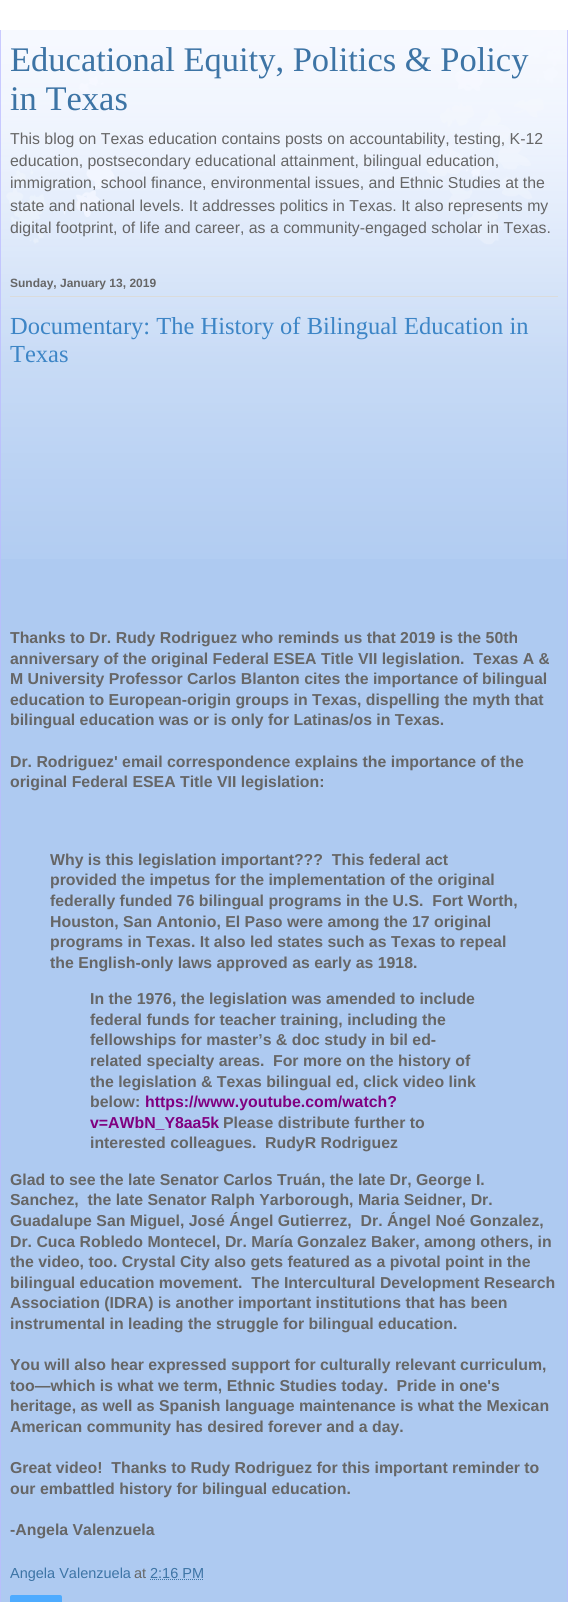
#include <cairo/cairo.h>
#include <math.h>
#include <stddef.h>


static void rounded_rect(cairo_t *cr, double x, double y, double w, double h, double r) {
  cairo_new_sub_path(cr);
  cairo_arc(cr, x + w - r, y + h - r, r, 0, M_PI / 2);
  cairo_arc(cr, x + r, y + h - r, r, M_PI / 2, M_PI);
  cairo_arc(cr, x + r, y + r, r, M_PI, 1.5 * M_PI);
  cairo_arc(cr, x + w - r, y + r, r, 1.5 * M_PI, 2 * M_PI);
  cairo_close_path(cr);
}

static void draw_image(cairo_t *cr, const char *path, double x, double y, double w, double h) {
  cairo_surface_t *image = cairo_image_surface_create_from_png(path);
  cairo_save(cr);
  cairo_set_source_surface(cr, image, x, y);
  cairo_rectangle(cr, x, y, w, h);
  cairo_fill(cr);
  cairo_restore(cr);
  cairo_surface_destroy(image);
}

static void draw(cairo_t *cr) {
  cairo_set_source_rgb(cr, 1, 1, 1);
  cairo_paint(cr);
  cairo_set_source_rgb(cr, 174 / 255.0, 202 / 255.0, 241 / 255.0);
  cairo_rectangle(cr, 0, 30, 568, 1572);
  cairo_fill(cr);
  draw_image(cr, "images/1.png", 0, 0, 568, 351);
  draw_image(cr, "images/2.png", 0, 30, 568, 529);
  cairo_set_source_rgba(cr, 187 / 255.0, 187 / 255.0, 1, 0.75);
  cairo_rectangle(cr, 567, 30, 1, 1572);
  cairo_fill(cr);
  cairo_rectangle(cr, 0, 30, 1, 1572);
  cairo_fill(cr);
  cairo_set_source_rgb(cr, 219 / 255.0, 219 / 255.0, 219 / 255.0);
  cairo_rectangle(cr, 10, 296, 548, 1);
  cairo_fill(cr);
  cairo_new_path(cr);
  cairo_move_to(cr, 150, 1579.5);
  cairo_line_to(cr, 203.5, 1579.5);
  cairo_set_source_rgb(cr, 61 / 255.0, 116 / 255.0, 165 / 255.0);
  cairo_set_line_width(cr, 1);
  cairo_set_dash(cr, (double[]){1, 1}, 2, 0);
  cairo_stroke(cr);
  cairo_set_source_rgb(cr, 78 / 255.0, 171 / 255.0, 1);
  rounded_rect(cr, 10, 1595, 52, 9, 2);
  cairo_fill(cr);
  cairo_select_font_face(cr, "Liberation Serif", CAIRO_FONT_SLANT_NORMAL, CAIRO_FONT_WEIGHT_NORMAL);
  cairo_set_font_size(cr, 34.5);
  cairo_set_source_rgb(cr, 61 / 255.0, 116 / 255.0, 165 / 255.0);
  cairo_move_to(cr, 10, 71);
  cairo_show_text(cr, "Educational Equity, Politics & Policy");
  cairo_move_to(cr, 10, 110);
  cairo_show_text(cr, "in Texas");
  cairo_select_font_face(cr, "Liberation Sans", CAIRO_FONT_SLANT_NORMAL, CAIRO_FONT_WEIGHT_NORMAL);
  cairo_set_font_size(cr, 15.85);
  cairo_set_source_rgb(cr, 102 / 255.0, 102 / 255.0, 102 / 255.0);
  cairo_move_to(cr, 10, 144);
  cairo_show_text(cr, "This blog on Texas education contains posts on accountability, testing, K-12");
  cairo_move_to(cr, 10, 166);
  cairo_show_text(cr, "education, postsecondary educational attainment, bilingual education,");
  cairo_move_to(cr, 10, 188);
  cairo_show_text(cr, "immigration, school finance, environmental issues, and Ethnic Studies at the");
  cairo_move_to(cr, 10, 211);
  cairo_show_text(cr, "state and national levels. It addresses politics in Texas. It also represents my");
  cairo_move_to(cr, 10, 233);
  cairo_show_text(cr, "digital footprint, of life and career, as a community-engaged scholar in Texas.");
  cairo_select_font_face(cr, "Liberation Sans", CAIRO_FONT_SLANT_NORMAL, CAIRO_FONT_WEIGHT_BOLD);
  cairo_set_font_size(cr, 12);
  cairo_move_to(cr, 10, 287);
  cairo_show_text(cr, "Sunday, January 13, 2019");
  cairo_select_font_face(cr, "Liberation Serif", CAIRO_FONT_SLANT_NORMAL, CAIRO_FONT_WEIGHT_NORMAL);
  cairo_set_font_size(cr, 24.5);
  cairo_set_source_rgb(cr, 61 / 255.0, 133 / 255.0, 198 / 255.0);
  cairo_move_to(cr, 10, 334);
  cairo_show_text(cr, "Documentary: The History of Bilingual Education in");
  cairo_move_to(cr, 10, 362);
  cairo_show_text(cr, "Texas");
  cairo_select_font_face(cr, "Liberation Sans", CAIRO_FONT_SLANT_NORMAL, CAIRO_FONT_WEIGHT_BOLD);
  cairo_set_font_size(cr, 15.85);
  cairo_set_source_rgb(cr, 102 / 255.0, 102 / 255.0, 102 / 255.0);
  cairo_move_to(cr, 10, 643);
  cairo_show_text(cr, "Thanks to Dr. Rudy Rodriguez who reminds us that 2019 is the 50th");
  cairo_move_to(cr, 10, 664);
  cairo_show_text(cr, "anniversary of the original Federal ESEA Title VII legislation.  Texas A &");
  cairo_move_to(cr, 10, 684);
  cairo_show_text(cr, "M University Professor Carlos Blanton cites the importance of bilingual");
  cairo_move_to(cr, 10, 705);
  cairo_show_text(cr, "education to European-origin groups in Texas, dispelling the myth that");
  cairo_move_to(cr, 10, 725);
  cairo_show_text(cr, "bilingual education was or is only for Latinas/os in Texas.");
  cairo_move_to(cr, 10, 767);
  cairo_show_text(cr, "Dr. Rodriguez' email correspondence explains the importance of the");
  cairo_move_to(cr, 10, 787);
  cairo_show_text(cr, "original Federal ESEA Title VII legislation:");
  cairo_move_to(cr, 50, 865);
  cairo_show_text(cr, "Why is this legislation important?\077?  This federal act");
  cairo_move_to(cr, 50, 885);
  cairo_show_text(cr, "provided the impetus for the implementation of the original");
  cairo_move_to(cr, 50, 906);
  cairo_show_text(cr, "federally funded 76 bilingual programs in the U.S.  Fort Worth,");
  cairo_move_to(cr, 50, 927);
  cairo_show_text(cr, "Houston, San Antonio, El Paso were among the 17 original");
  cairo_move_to(cr, 50, 947);
  cairo_show_text(cr, "programs in Texas. It also led states such as Texas to repeal");
  cairo_move_to(cr, 50, 968);
  cairo_show_text(cr, "the English-only laws approved as early as 1918.");
  cairo_move_to(cr, 90, 1004);
  cairo_show_text(cr, "In the 1976, the legislation was amended to include");
  cairo_move_to(cr, 90, 1025);
  cairo_show_text(cr, "federal funds for teacher training, including the");
  cairo_move_to(cr, 90, 1045);
  cairo_show_text(cr, "fellowships for master’s & doc study in bil ed-");
  cairo_move_to(cr, 90, 1066);
  cairo_show_text(cr, "related specialty areas.");
  cairo_move_to(cr, 273, 1066);
  cairo_show_text(cr, "For more on the history of");
  cairo_move_to(cr, 90, 1087);
  cairo_show_text(cr, "the legislation & Texas bilingual ed, click video link");
  cairo_move_to(cr, 90, 1107);
  cairo_show_text(cr, "below:");
  cairo_set_source_rgb(cr, 128 / 255.0, 0, 128 / 255.0);
  cairo_move_to(cr, 145, 1107);
  cairo_show_text(cr, "https://www.youtube.com/watch?");
  cairo_move_to(cr, 90, 1128);
  cairo_show_text(cr, "v=AWbN_Y8aa5k");
  cairo_set_source_rgb(cr, 102 / 255.0, 102 / 255.0, 102 / 255.0);
  cairo_move_to(cr, 223, 1128);
  cairo_show_text(cr, "Please distribute further to");
  cairo_move_to(cr, 90, 1148);
  cairo_show_text(cr, "interested colleagues.");
  cairo_move_to(cr, 265, 1148);
  cairo_show_text(cr, "RudyR Rodriguez");
  cairo_move_to(cr, 10, 1185);
  cairo_show_text(cr, "Glad to see the late Senator Carlos Truán, the late Dr, George I.");
  cairo_move_to(cr, 10, 1205);
  cairo_show_text(cr, "Sanchez,  the late Senator Ralph Yarborough, Maria Seidner, Dr.");
  cairo_move_to(cr, 10, 1226);
  cairo_show_text(cr, "Guadalupe San Miguel, José Ángel Gutierrez,  Dr. Ángel Noé Gonzalez,");
  cairo_move_to(cr, 10, 1247);
  cairo_show_text(cr, "Dr. Cuca Robledo Montecel, Dr. María Gonzalez Baker, among others, in");
  cairo_move_to(cr, 10, 1267);
  cairo_show_text(cr, "the video, too. Crystal City also gets featured as a pivotal point in the");
  cairo_move_to(cr, 10, 1288);
  cairo_show_text(cr, "bilingual education movement.  The Intercultural Development Research");
  cairo_move_to(cr, 10, 1308);
  cairo_show_text(cr, "Association (IDRA) is another important institutions that has been");
  cairo_move_to(cr, 10, 1329);
  cairo_show_text(cr, "instrumental in leading the struggle for bilingual education.");
  cairo_move_to(cr, 10, 1370);
  cairo_show_text(cr, "You will also hear expressed support for culturally relevant curriculum,");
  cairo_move_to(cr, 10, 1391);
  cairo_show_text(cr, "too—which is what we term, Ethnic Studies today.  Pride in one's");
  cairo_move_to(cr, 10, 1411);
  cairo_show_text(cr, "heritage, as well as Spanish language maintenance is what the Mexican");
  cairo_move_to(cr, 10, 1432);
  cairo_show_text(cr, "American community has desired forever and a day.");
  cairo_move_to(cr, 10, 1473);
  cairo_show_text(cr, "Great video!  Thanks to Rudy Rodriguez for this important reminder to");
  cairo_move_to(cr, 10, 1494);
  cairo_show_text(cr, "our embattled history for bilingual education.");
  cairo_move_to(cr, 10, 1535);
  cairo_show_text(cr, "-Angela Valenzuela");
  cairo_select_font_face(cr, "Liberation Sans", CAIRO_FONT_SLANT_NORMAL, CAIRO_FONT_WEIGHT_NORMAL);
  cairo_set_font_size(cr, 14.5);
  cairo_set_source_rgb(cr, 61 / 255.0, 116 / 255.0, 165 / 255.0);
  cairo_move_to(cr, 10, 1578);
  cairo_show_text(cr, "Angela Valenzuela");
  cairo_set_source_rgb(cr, 102 / 255.0, 102 / 255.0, 102 / 255.0);
  cairo_move_to(cr, 134, 1578);
  cairo_show_text(cr, "at");
  cairo_set_source_rgb(cr, 61 / 255.0, 116 / 255.0, 165 / 255.0);
  cairo_move_to(cr, 150, 1578);
  cairo_show_text(cr, "2:16 PM");
}

int main(void) {
  cairo_surface_t *surface = cairo_image_surface_create(CAIRO_FORMAT_RGB24, 568, 1602);
  cairo_t *cr = cairo_create(surface);
  cairo_font_options_t *options = cairo_font_options_create();
  cairo_font_options_set_hint_metrics(options, CAIRO_HINT_METRICS_OFF);
  cairo_font_options_set_hint_style(options, CAIRO_HINT_STYLE_NONE);
  cairo_set_font_options(cr, options);
  cairo_set_miter_limit(cr, 4);
  draw(cr);
  cairo_surface_write_to_png(surface, "out.png");
  cairo_font_options_destroy(options);
  cairo_destroy(cr);
  cairo_surface_destroy(surface);
  return 0;
}
